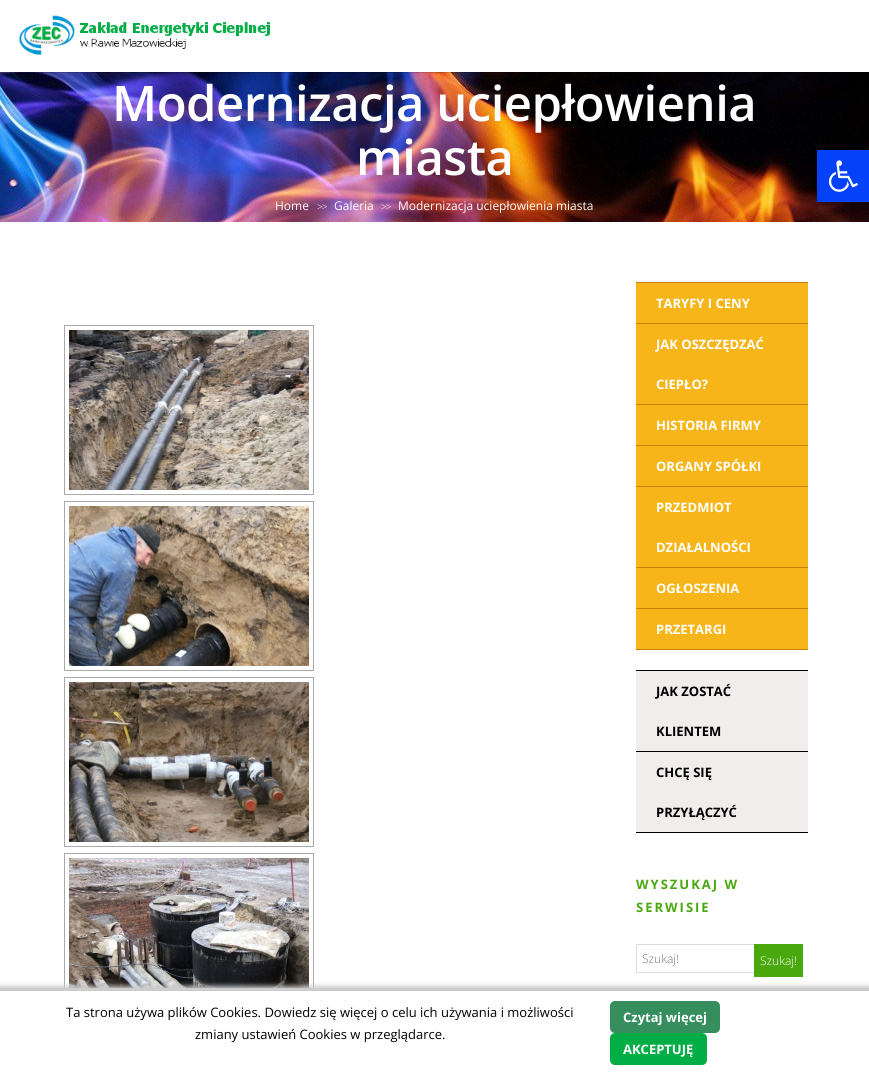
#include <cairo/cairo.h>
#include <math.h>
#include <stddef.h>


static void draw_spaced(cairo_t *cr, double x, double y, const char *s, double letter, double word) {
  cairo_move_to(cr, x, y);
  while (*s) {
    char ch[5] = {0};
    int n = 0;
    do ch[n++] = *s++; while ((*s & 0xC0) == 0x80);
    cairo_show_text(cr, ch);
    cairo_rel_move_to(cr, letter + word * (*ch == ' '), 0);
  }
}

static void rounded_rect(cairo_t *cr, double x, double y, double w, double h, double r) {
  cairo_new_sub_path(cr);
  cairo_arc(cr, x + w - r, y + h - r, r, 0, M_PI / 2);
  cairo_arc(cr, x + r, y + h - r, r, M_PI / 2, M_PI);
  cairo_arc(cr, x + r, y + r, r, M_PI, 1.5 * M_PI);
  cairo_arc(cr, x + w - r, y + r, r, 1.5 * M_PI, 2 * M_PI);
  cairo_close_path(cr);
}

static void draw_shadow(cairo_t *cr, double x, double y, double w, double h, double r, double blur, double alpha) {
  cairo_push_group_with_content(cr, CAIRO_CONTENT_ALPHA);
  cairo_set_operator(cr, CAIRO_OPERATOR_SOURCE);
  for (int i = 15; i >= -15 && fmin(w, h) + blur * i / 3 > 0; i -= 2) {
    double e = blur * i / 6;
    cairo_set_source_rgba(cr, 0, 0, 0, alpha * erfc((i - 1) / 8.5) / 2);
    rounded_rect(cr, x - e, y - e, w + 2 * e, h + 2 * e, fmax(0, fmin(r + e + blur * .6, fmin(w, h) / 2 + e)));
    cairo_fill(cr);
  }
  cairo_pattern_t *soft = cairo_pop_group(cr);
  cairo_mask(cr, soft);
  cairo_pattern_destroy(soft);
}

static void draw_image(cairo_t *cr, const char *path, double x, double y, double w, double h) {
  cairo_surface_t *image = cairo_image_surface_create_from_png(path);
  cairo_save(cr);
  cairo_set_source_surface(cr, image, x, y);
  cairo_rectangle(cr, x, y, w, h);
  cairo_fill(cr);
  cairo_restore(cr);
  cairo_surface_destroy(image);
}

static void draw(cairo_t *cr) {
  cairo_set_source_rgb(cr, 1, 1, 1);
  cairo_paint(cr);
  draw_image(cr, "images/2.png", 0, 72, 869, 150);
  cairo_save(cr);
  cairo_rectangle(cr, 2, 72, 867, 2);
  cairo_clip(cr);
  cairo_set_source_rgb(cr, 0, 0, 0);
  draw_shadow(cr, 3, 0, 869, 72, 0, 1, 0.5);
  cairo_restore(cr);
  draw_image(cr, "images/1.png", 19, 15, 251, 41);
  cairo_rectangle(cr, 64.5, 325.5, 249, 169);
  cairo_set_source_rgb(cr, 169 / 255.0, 169 / 255.0, 169 / 255.0);
  cairo_set_line_width(cr, 1);
  cairo_stroke(cr);
  draw_image(cr, "images/3.png", 69, 330, 240, 160);
  cairo_rectangle(cr, 64.5, 501.5, 249, 169);
  cairo_stroke(cr);
  draw_image(cr, "images/4.png", 69, 506, 240, 160);
  cairo_rectangle(cr, 64.5, 677.5, 249, 169);
  cairo_stroke(cr);
  draw_image(cr, "images/5.png", 69, 682, 240, 160);
  cairo_rectangle(cr, 64.5, 853.5, 249, 169);
  cairo_stroke(cr);
  draw_image(cr, "images/6.png", 69, 858, 240, 130);
  cairo_set_source_rgb(cr, 247 / 255.0, 181 / 255.0, 25 / 255.0);
  cairo_rectangle(cr, 636, 283, 172, 366);
  cairo_fill(cr);
  cairo_set_source_rgb(cr, 204 / 255.0, 128 / 255.0, 0);
  cairo_rectangle(cr, 636, 282, 172, 1);
  cairo_fill(cr);
  cairo_rectangle(cr, 636, 323, 172, 1);
  cairo_fill(cr);
  cairo_rectangle(cr, 636, 404, 172, 1);
  cairo_fill(cr);
  cairo_rectangle(cr, 636, 445, 172, 1);
  cairo_fill(cr);
  cairo_rectangle(cr, 636, 486, 172, 1);
  cairo_fill(cr);
  cairo_rectangle(cr, 636, 567, 172, 1);
  cairo_fill(cr);
  cairo_rectangle(cr, 636, 608, 172, 1);
  cairo_fill(cr);
  cairo_rectangle(cr, 636, 649, 172, 1);
  cairo_fill(cr);
  cairo_set_source_rgb(cr, 241 / 255.0, 237 / 255.0, 237 / 255.0);
  cairo_rectangle(cr, 636, 671, 172, 161);
  cairo_fill(cr);
  cairo_set_source_rgb(cr, 0, 0, 0);
  cairo_rectangle(cr, 636, 670, 172, 1);
  cairo_fill(cr);
  cairo_rectangle(cr, 636, 751, 172, 1);
  cairo_fill(cr);
  cairo_rectangle(cr, 636, 832, 172, 1);
  cairo_fill(cr);
  cairo_set_source_rgb(cr, 221 / 255.0, 221 / 255.0, 221 / 255.0);
  cairo_rectangle(cr, 636, 944, 118, 1);
  cairo_fill(cr);
  cairo_rectangle(cr, 636, 972, 118, 1);
  cairo_fill(cr);
  cairo_rectangle(cr, 636, 944, 1, 29);
  cairo_fill(cr);
  cairo_set_source_rgb(cr, 72 / 255.0, 168 / 255.0, 13 / 255.0);
  cairo_rectangle(cr, 754, 944, 49, 33);
  cairo_fill(cr);
  cairo_set_source_rgb(cr, 4 / 255.0, 66 / 255.0, 249 / 255.0);
  cairo_rectangle(cr, 817, 150, 52, 52);
  cairo_fill(cr);
  draw_image(cr, "images/7.png", 828, 160, 30, 32);
  cairo_set_source_rgb(cr, 204 / 255.0, 204 / 255.0, 204 / 255.0);
  draw_shadow(cr, -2, 986, 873, 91, 0, 2.5, 1);
  cairo_set_source_rgb(cr, 1, 1, 1);
  cairo_rectangle(cr, 0, 991, 869, 84);
  cairo_fill(cr);
  cairo_set_source_rgb(cr, 204 / 255.0, 204 / 255.0, 204 / 255.0);
  cairo_rectangle(cr, 0, 988, 869, 3);
  cairo_fill(cr);
  cairo_set_source_rgb(cr, 54 / 255.0, 142 / 255.0, 95 / 255.0);
  rounded_rect(cr, 610, 1001, 110, 32, 5);
  cairo_fill(cr);
  cairo_set_source_rgb(cr, 1 / 255.0, 174 / 255.0, 69 / 255.0);
  rounded_rect(cr, 610, 1033, 97, 32, 5);
  cairo_fill(cr);
  cairo_select_font_face(cr, "Open Sans SemiBold", CAIRO_FONT_SLANT_NORMAL, CAIRO_FONT_WEIGHT_NORMAL);
  cairo_set_font_size(cr, 49);
  cairo_set_source_rgb(cr, 1, 1, 1);
  draw_spaced(cr, 112, 121, "Modernizacja uciepłowienia", -0.5, 0);
  draw_spaced(cr, 356, 175, "miasta", -0.5, 0);
  cairo_select_font_face(cr, "Open Sans", CAIRO_FONT_SLANT_NORMAL, CAIRO_FONT_WEIGHT_NORMAL);
  cairo_set_font_size(cr, 12);
  cairo_move_to(cr, 275, 210);
  cairo_show_text(cr, "Home");
  cairo_select_font_face(cr, "Liberation Serif", CAIRO_FONT_SLANT_NORMAL, CAIRO_FONT_WEIGHT_NORMAL);
  cairo_set_font_size(cr, 10);
  draw_spaced(cr, 317, 210, ">>", -1, 0);
  cairo_select_font_face(cr, "Open Sans", CAIRO_FONT_SLANT_NORMAL, CAIRO_FONT_WEIGHT_NORMAL);
  cairo_set_font_size(cr, 12);
  cairo_move_to(cr, 334, 210);
  cairo_show_text(cr, "Galeria");
  cairo_select_font_face(cr, "Liberation Serif", CAIRO_FONT_SLANT_NORMAL, CAIRO_FONT_WEIGHT_NORMAL);
  cairo_set_font_size(cr, 10);
  draw_spaced(cr, 381, 210, ">>", -1, 0);
  cairo_select_font_face(cr, "Open Sans", CAIRO_FONT_SLANT_NORMAL, CAIRO_FONT_WEIGHT_NORMAL);
  cairo_set_font_size(cr, 12);
  cairo_move_to(cr, 398, 210);
  cairo_show_text(cr, "Modernizacja uciepłowienia miasta");
  cairo_select_font_face(cr, "Open Sans", CAIRO_FONT_SLANT_NORMAL, CAIRO_FONT_WEIGHT_BOLD);
  cairo_set_font_size(cr, 13);
  cairo_move_to(cr, 656, 308);
  cairo_show_text(cr, "TARYFY I CENY");
  cairo_move_to(cr, 656, 349);
  cairo_show_text(cr, "JAK OSZCZĘDZAĆ");
  cairo_move_to(cr, 656, 389);
  cairo_show_text(cr, "CIEPŁO?");
  cairo_move_to(cr, 656, 430);
  cairo_show_text(cr, "HISTORIA FIRMY");
  cairo_move_to(cr, 656, 471);
  cairo_show_text(cr, "ORGANY SPÓŁKI");
  cairo_move_to(cr, 656, 512);
  cairo_show_text(cr, "PRZEDMIOT");
  cairo_move_to(cr, 656, 552);
  cairo_show_text(cr, "DZIAŁALNOŚCI");
  cairo_move_to(cr, 656, 593);
  cairo_show_text(cr, "OGŁOSZENIA");
  cairo_move_to(cr, 656, 634);
  cairo_show_text(cr, "PRZETARGI");
  cairo_set_source_rgb(cr, 0, 0, 0);
  cairo_move_to(cr, 656, 696);
  cairo_show_text(cr, "JAK ZOSTAĆ");
  cairo_move_to(cr, 656, 736);
  cairo_show_text(cr, "KLIENTEM");
  cairo_move_to(cr, 656, 777);
  cairo_show_text(cr, "CHCĘ SIĘ");
  cairo_move_to(cr, 656, 817);
  cairo_show_text(cr, "PRZYŁĄCZYĆ");
  cairo_set_source_rgb(cr, 72 / 255.0, 168 / 255.0, 13 / 255.0);
  draw_spaced(cr, 636, 889, "WYSZUKAJ W", 2, 0);
  draw_spaced(cr, 636, 912, "SERWISIE", 2, 0);
  cairo_select_font_face(cr, "Open Sans Light", CAIRO_FONT_SLANT_NORMAL, CAIRO_FONT_WEIGHT_NORMAL);
  cairo_set_font_size(cr, 12);
  cairo_set_source_rgb(cr, 117 / 255.0, 117 / 255.0, 117 / 255.0);
  cairo_move_to(cr, 642, 963);
  cairo_show_text(cr, "Szukaj!");
  cairo_set_source_rgb(cr, 1, 1, 1);
  cairo_move_to(cr, 760, 965);
  cairo_show_text(cr, "Szukaj!");
  cairo_select_font_face(cr, "Open Sans", CAIRO_FONT_SLANT_NORMAL, CAIRO_FONT_WEIGHT_NORMAL);
  cairo_set_font_size(cr, 13);
  cairo_set_source_rgb(cr, 0, 0, 0);
  cairo_move_to(cr, 66, 1017);
  cairo_show_text(cr, "Ta strona używa plików Cookies. Dowiedz się więcej o celu ich używania i możliwości");
  cairo_move_to(cr, 195, 1039);
  cairo_show_text(cr, "zmiany ustawień Cookies w przeglądarce.");
  cairo_select_font_face(cr, "Open Sans", CAIRO_FONT_SLANT_NORMAL, CAIRO_FONT_WEIGHT_BOLD);
  cairo_set_source_rgb(cr, 1, 1, 1);
  cairo_move_to(cr, 623, 1022);
  cairo_show_text(cr, "Czytaj więcej");
  cairo_move_to(cr, 623, 1054);
  cairo_show_text(cr, "AKCEPTUJĘ");
}

int main(void) {
  cairo_surface_t *surface = cairo_image_surface_create(CAIRO_FORMAT_RGB24, 869, 1075);
  cairo_t *cr = cairo_create(surface);
  cairo_font_options_t *options = cairo_font_options_create();
  cairo_font_options_set_hint_metrics(options, CAIRO_HINT_METRICS_OFF);
  cairo_font_options_set_hint_style(options, CAIRO_HINT_STYLE_NONE);
  cairo_set_font_options(cr, options);
  cairo_set_miter_limit(cr, 4);
  draw(cr);
  cairo_surface_write_to_png(surface, "out.png");
  cairo_font_options_destroy(options);
  cairo_destroy(cr);
  cairo_surface_destroy(surface);
  return 0;
}
